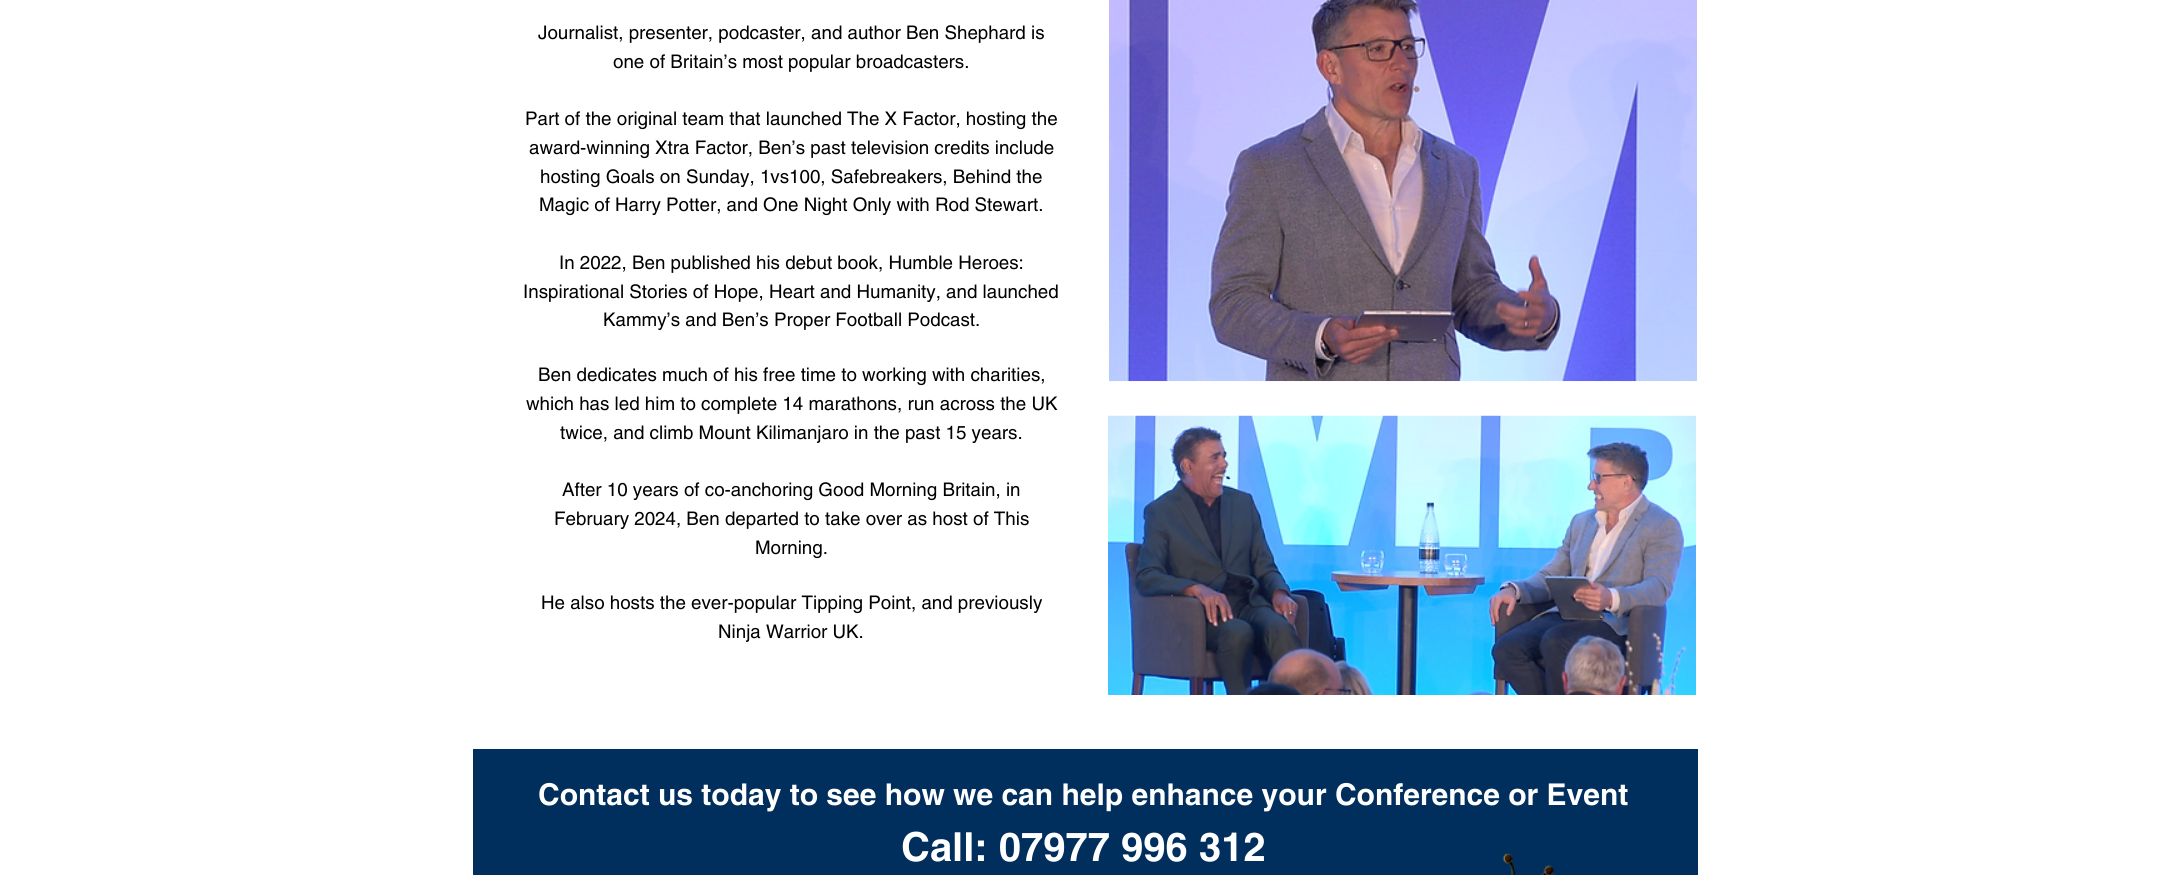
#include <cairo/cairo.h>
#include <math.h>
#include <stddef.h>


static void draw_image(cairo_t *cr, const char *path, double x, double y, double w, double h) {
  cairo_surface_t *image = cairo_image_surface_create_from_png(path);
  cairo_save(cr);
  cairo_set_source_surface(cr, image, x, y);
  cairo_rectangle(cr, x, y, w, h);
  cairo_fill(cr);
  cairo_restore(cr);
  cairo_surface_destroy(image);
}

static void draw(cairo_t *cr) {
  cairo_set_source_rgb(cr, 1, 1, 1);
  cairo_paint(cr);
  draw_image(cr, "images/1.png", 1109, 0, 588, 382);
  draw_image(cr, "images/2.png", 1108, 415, 588, 280);
  cairo_set_source_rgb(cr, 0, 46 / 255.0, 93 / 255.0);
  cairo_rectangle(cr, 473, 749, 1225, 126);
  cairo_fill(cr);
  draw_image(cr, "images/3.png", 1502, 853, 52, 22);
  cairo_select_font_face(cr, "helvetica", CAIRO_FONT_SLANT_NORMAL, CAIRO_FONT_WEIGHT_NORMAL);
  cairo_set_font_size(cr, 18.75);
  cairo_set_source_rgb(cr, 0, 0, 0);
  cairo_move_to(cr, 538, 39);
  cairo_show_text(cr, "Journalist, presenter, podcaster, and author Ben Shephard is");
  cairo_move_to(cr, 613, 68);
  cairo_show_text(cr, "one of Britain’s most popular broadcasters.");
  cairo_move_to(cr, 525, 125);
  cairo_show_text(cr, "Part of the original team that launched The X Factor, hosting the");
  cairo_move_to(cr, 529, 154);
  cairo_show_text(cr, "award-winning Xtra Factor, Ben’s past television credits include");
  cairo_move_to(cr, 540, 183);
  cairo_show_text(cr, "hosting Goals on Sunday, 1vs100, Safebreakers, Behind the");
  cairo_move_to(cr, 539, 211);
  cairo_show_text(cr, "Magic of Harry Potter, and One Night Only with Rod Stewart.");
  cairo_move_to(cr, 559, 269);
  cairo_show_text(cr, "In 2022, Ben published his debut book, Humble Heroes:");
  cairo_move_to(cr, 523, 298);
  cairo_show_text(cr, "Inspirational Stories of Hope, Heart and Humanity, and launched");
  cairo_move_to(cr, 603, 326);
  cairo_show_text(cr, "Kammy’s and Ben’s Proper Football Podcast.");
  cairo_move_to(cr, 538, 381);
  cairo_show_text(cr, "Ben dedicates much of his free time to working with charities,");
  cairo_move_to(cr, 526, 410);
  cairo_show_text(cr, "which has led him to complete 14 marathons, run across the UK");
  cairo_move_to(cr, 560, 439);
  cairo_show_text(cr, "twice, and climb Mount Kilimanjaro in the past 15 years.");
  cairo_move_to(cr, 562, 496);
  cairo_show_text(cr, "After 10 years of co-anchoring Good Morning Britain, in");
  cairo_move_to(cr, 554, 525);
  cairo_show_text(cr, "February 2024, Ben departed to take over as host of This");
  cairo_move_to(cr, 755, 554);
  cairo_show_text(cr, "Morning.");
  cairo_move_to(cr, 541, 609);
  cairo_show_text(cr, "He also hosts the ever-popular Tipping Point, and previously");
  cairo_move_to(cr, 718, 638);
  cairo_show_text(cr, "Ninja Warrior UK.");
  cairo_select_font_face(cr, "helvetica", CAIRO_FONT_SLANT_NORMAL, CAIRO_FONT_WEIGHT_BOLD);
  cairo_set_font_size(cr, 30);
  cairo_set_source_rgb(cr, 1, 1, 1);
  cairo_move_to(cr, 538, 805);
  cairo_show_text(cr, "Contact us today to see how we can help enhance your Conference or Event");
  cairo_set_font_size(cr, 40);
  cairo_move_to(cr, 901, 861);
  cairo_show_text(cr, "Call: 07977 996 312");
}

int main(void) {
  cairo_surface_t *surface = cairo_image_surface_create(CAIRO_FORMAT_RGB24, 2168, 875);
  cairo_t *cr = cairo_create(surface);
  cairo_font_options_t *options = cairo_font_options_create();
  cairo_font_options_set_hint_metrics(options, CAIRO_HINT_METRICS_OFF);
  cairo_font_options_set_hint_style(options, CAIRO_HINT_STYLE_NONE);
  cairo_set_font_options(cr, options);
  cairo_set_miter_limit(cr, 4);
  draw(cr);
  cairo_surface_write_to_png(surface, "out.png");
  cairo_font_options_destroy(options);
  cairo_destroy(cr);
  cairo_surface_destroy(surface);
  return 0;
}
